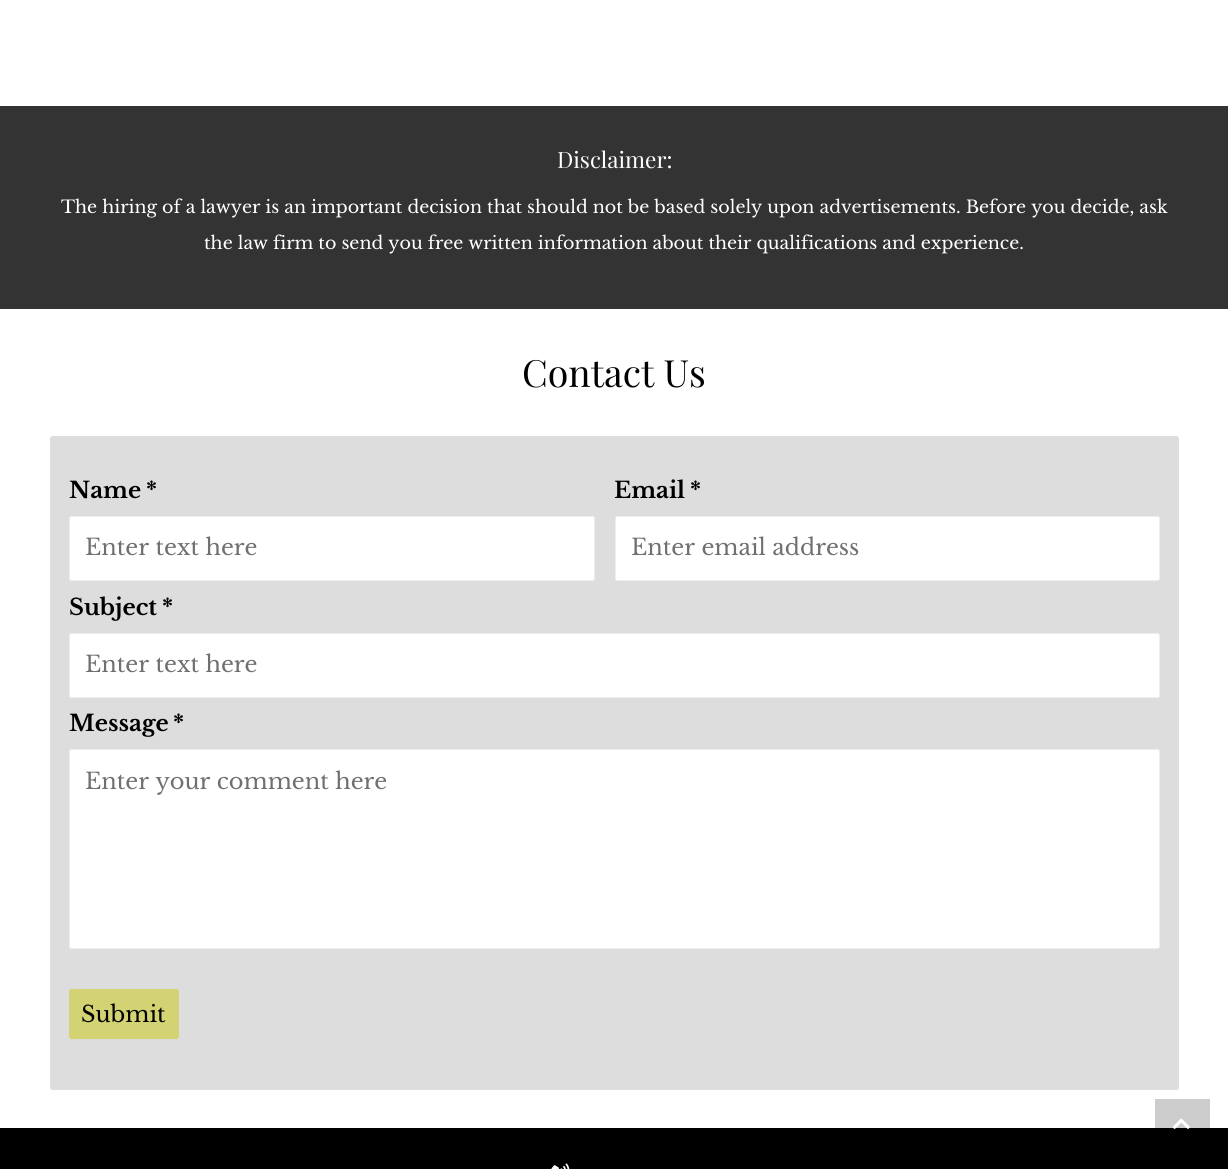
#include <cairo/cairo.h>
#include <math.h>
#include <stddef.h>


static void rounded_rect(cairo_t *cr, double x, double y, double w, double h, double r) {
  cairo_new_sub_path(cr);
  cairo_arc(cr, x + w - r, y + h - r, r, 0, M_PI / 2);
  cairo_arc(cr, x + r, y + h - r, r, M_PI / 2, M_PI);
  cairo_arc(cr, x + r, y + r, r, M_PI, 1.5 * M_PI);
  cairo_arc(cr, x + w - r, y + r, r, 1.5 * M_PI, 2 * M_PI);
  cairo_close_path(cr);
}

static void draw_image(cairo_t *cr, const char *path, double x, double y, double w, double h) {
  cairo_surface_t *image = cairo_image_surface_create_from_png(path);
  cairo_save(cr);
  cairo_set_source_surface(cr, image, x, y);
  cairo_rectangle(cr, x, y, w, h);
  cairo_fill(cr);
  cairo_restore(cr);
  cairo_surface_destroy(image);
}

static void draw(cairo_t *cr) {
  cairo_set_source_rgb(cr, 1, 1, 1);
  cairo_paint(cr);
  cairo_set_source_rgb(cr, 204 / 255.0, 204 / 255.0, 204 / 255.0);
  cairo_rectangle(cr, 1155, 1099, 55, 29);
  cairo_fill(cr);
  cairo_set_source_rgb(cr, 51 / 255.0, 51 / 255.0, 51 / 255.0);
  cairo_rectangle(cr, 0, 106, 1228, 203);
  cairo_fill(cr);
  cairo_set_source_rgb(cr, 221 / 255.0, 221 / 255.0, 221 / 255.0);
  rounded_rect(cr, 50, 436, 1129, 654, 2.5);
  cairo_fill(cr);
  cairo_set_source_rgb(cr, 1, 1, 1);
  rounded_rect(cr, 69.5, 516.5, 525, 64, 2);
  cairo_fill_preserve(cr);
  cairo_set_source_rgb(cr, 238 / 255.0, 238 / 255.0, 238 / 255.0);
  cairo_set_line_width(cr, 1);
  cairo_stroke(cr);
  cairo_set_source_rgb(cr, 1, 1, 1);
  rounded_rect(cr, 615.5, 516.5, 544, 64, 2);
  cairo_fill_preserve(cr);
  cairo_set_source_rgb(cr, 238 / 255.0, 238 / 255.0, 238 / 255.0);
  cairo_stroke(cr);
  cairo_set_source_rgb(cr, 1, 1, 1);
  rounded_rect(cr, 69.5, 633.5, 1090, 64, 2);
  cairo_fill_preserve(cr);
  cairo_set_source_rgb(cr, 238 / 255.0, 238 / 255.0, 238 / 255.0);
  cairo_stroke(cr);
  cairo_set_source_rgb(cr, 1, 1, 1);
  rounded_rect(cr, 69.5, 749.5, 1090, 199, 2);
  cairo_fill_preserve(cr);
  cairo_set_source_rgb(cr, 238 / 255.0, 238 / 255.0, 238 / 255.0);
  cairo_stroke(cr);
  cairo_set_source_rgb(cr, 212 / 255.0, 211 / 255.0, 115 / 255.0);
  rounded_rect(cr, 69, 989, 110, 50, 2.5);
  cairo_fill(cr);
  cairo_set_source_rgb(cr, 0, 0, 0);
  cairo_rectangle(cr, 0, 1128, 1228, 41);
  cairo_fill(cr);
  draw_image(cr, "images/1.png", 551, 1163, 19, 6);
  draw_image(cr, "images/2.png", 1172, 1118, 18, 11);
  cairo_select_font_face(cr, "Playfair Display", CAIRO_FONT_SLANT_NORMAL, CAIRO_FONT_WEIGHT_NORMAL);
  cairo_set_font_size(cr, 22.5);
  cairo_set_source_rgb(cr, 1, 1, 1);
  cairo_move_to(cr, 557, 168);
  cairo_show_text(cr, "Disclaimer:");
  cairo_select_font_face(cr, "Libre Baskerville", CAIRO_FONT_SLANT_NORMAL, CAIRO_FONT_WEIGHT_NORMAL);
  cairo_set_font_size(cr, 17.5);
  cairo_move_to(cr, 61, 213);
  cairo_show_text(cr, "The hiring of a lawyer is an important decision that should not be based solely upon advertisements. Before you decide, ask");
  cairo_move_to(cr, 204, 249);
  cairo_show_text(cr, "the law firm to send you free written information about their qualifications and experience.");
  cairo_select_font_face(cr, "Playfair Display", CAIRO_FONT_SLANT_NORMAL, CAIRO_FONT_WEIGHT_NORMAL);
  cairo_set_font_size(cr, 37.5);
  cairo_set_source_rgb(cr, 0, 0, 0);
  cairo_move_to(cr, 522, 387);
  cairo_show_text(cr, "Contact Us");
  cairo_select_font_face(cr, "Libre Baskerville", CAIRO_FONT_SLANT_NORMAL, CAIRO_FONT_WEIGHT_BOLD);
  cairo_set_font_size(cr, 22.5);
  cairo_move_to(cr, 69, 498);
  cairo_show_text(cr, "Name");
  cairo_move_to(cr, 146, 498);
  cairo_show_text(cr, "*");
  cairo_select_font_face(cr, "Libre Baskerville", CAIRO_FONT_SLANT_NORMAL, CAIRO_FONT_WEIGHT_NORMAL);
  cairo_set_source_rgb(cr, 112 / 255.0, 112 / 255.0, 112 / 255.0);
  cairo_move_to(cr, 85, 555);
  cairo_show_text(cr, "Enter text here");
  cairo_select_font_face(cr, "Libre Baskerville", CAIRO_FONT_SLANT_NORMAL, CAIRO_FONT_WEIGHT_BOLD);
  cairo_set_source_rgb(cr, 0, 0, 0);
  cairo_move_to(cr, 614, 498);
  cairo_show_text(cr, "Email");
  cairo_move_to(cr, 690, 498);
  cairo_show_text(cr, "*");
  cairo_select_font_face(cr, "Libre Baskerville", CAIRO_FONT_SLANT_NORMAL, CAIRO_FONT_WEIGHT_NORMAL);
  cairo_set_source_rgb(cr, 112 / 255.0, 112 / 255.0, 112 / 255.0);
  cairo_move_to(cr, 631, 555);
  cairo_show_text(cr, "Enter email address");
  cairo_select_font_face(cr, "Libre Baskerville", CAIRO_FONT_SLANT_NORMAL, CAIRO_FONT_WEIGHT_BOLD);
  cairo_set_source_rgb(cr, 0, 0, 0);
  cairo_move_to(cr, 69, 615);
  cairo_show_text(cr, "Subject");
  cairo_move_to(cr, 162, 615);
  cairo_show_text(cr, "*");
  cairo_select_font_face(cr, "Libre Baskerville", CAIRO_FONT_SLANT_NORMAL, CAIRO_FONT_WEIGHT_NORMAL);
  cairo_set_source_rgb(cr, 112 / 255.0, 112 / 255.0, 112 / 255.0);
  cairo_move_to(cr, 85, 672);
  cairo_show_text(cr, "Enter text here");
  cairo_select_font_face(cr, "Libre Baskerville", CAIRO_FONT_SLANT_NORMAL, CAIRO_FONT_WEIGHT_BOLD);
  cairo_set_source_rgb(cr, 0, 0, 0);
  cairo_move_to(cr, 69, 731);
  cairo_show_text(cr, "Message");
  cairo_move_to(cr, 173, 731);
  cairo_show_text(cr, "*");
  cairo_select_font_face(cr, "Libre Baskerville", CAIRO_FONT_SLANT_NORMAL, CAIRO_FONT_WEIGHT_NORMAL);
  cairo_set_source_rgb(cr, 112 / 255.0, 112 / 255.0, 112 / 255.0);
  cairo_move_to(cr, 85, 789);
  cairo_show_text(cr, "Enter your comment here");
  cairo_set_source_rgb(cr, 0, 0, 0);
  cairo_move_to(cr, 81, 1022);
  cairo_show_text(cr, "Submit");
}

int main(void) {
  cairo_surface_t *surface = cairo_image_surface_create(CAIRO_FORMAT_RGB24, 1228, 1169);
  cairo_t *cr = cairo_create(surface);
  cairo_font_options_t *options = cairo_font_options_create();
  cairo_font_options_set_hint_metrics(options, CAIRO_HINT_METRICS_OFF);
  cairo_font_options_set_hint_style(options, CAIRO_HINT_STYLE_NONE);
  cairo_set_font_options(cr, options);
  cairo_set_miter_limit(cr, 4);
  draw(cr);
  cairo_surface_write_to_png(surface, "out.png");
  cairo_font_options_destroy(options);
  cairo_destroy(cr);
  cairo_surface_destroy(surface);
  return 0;
}
